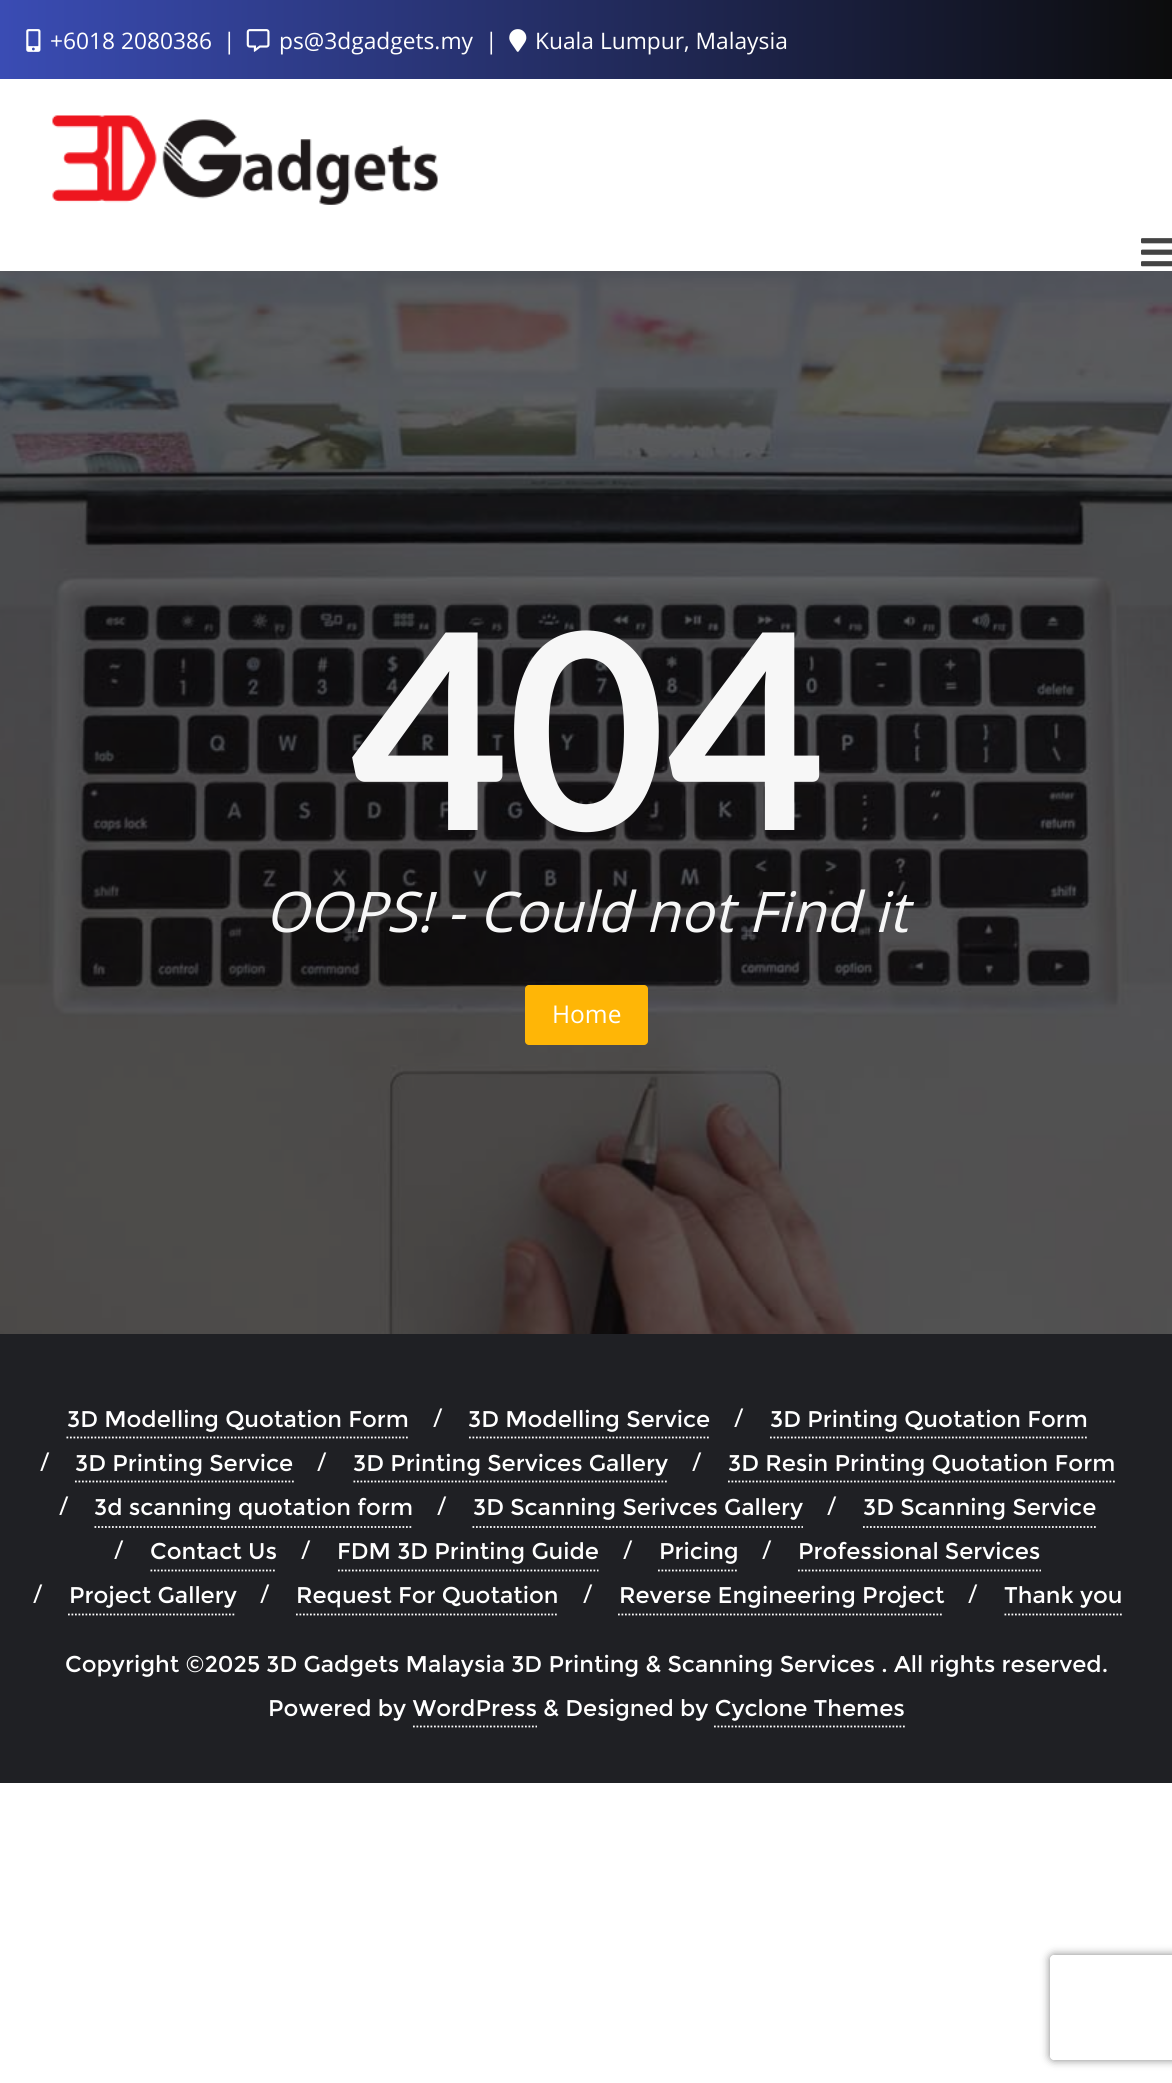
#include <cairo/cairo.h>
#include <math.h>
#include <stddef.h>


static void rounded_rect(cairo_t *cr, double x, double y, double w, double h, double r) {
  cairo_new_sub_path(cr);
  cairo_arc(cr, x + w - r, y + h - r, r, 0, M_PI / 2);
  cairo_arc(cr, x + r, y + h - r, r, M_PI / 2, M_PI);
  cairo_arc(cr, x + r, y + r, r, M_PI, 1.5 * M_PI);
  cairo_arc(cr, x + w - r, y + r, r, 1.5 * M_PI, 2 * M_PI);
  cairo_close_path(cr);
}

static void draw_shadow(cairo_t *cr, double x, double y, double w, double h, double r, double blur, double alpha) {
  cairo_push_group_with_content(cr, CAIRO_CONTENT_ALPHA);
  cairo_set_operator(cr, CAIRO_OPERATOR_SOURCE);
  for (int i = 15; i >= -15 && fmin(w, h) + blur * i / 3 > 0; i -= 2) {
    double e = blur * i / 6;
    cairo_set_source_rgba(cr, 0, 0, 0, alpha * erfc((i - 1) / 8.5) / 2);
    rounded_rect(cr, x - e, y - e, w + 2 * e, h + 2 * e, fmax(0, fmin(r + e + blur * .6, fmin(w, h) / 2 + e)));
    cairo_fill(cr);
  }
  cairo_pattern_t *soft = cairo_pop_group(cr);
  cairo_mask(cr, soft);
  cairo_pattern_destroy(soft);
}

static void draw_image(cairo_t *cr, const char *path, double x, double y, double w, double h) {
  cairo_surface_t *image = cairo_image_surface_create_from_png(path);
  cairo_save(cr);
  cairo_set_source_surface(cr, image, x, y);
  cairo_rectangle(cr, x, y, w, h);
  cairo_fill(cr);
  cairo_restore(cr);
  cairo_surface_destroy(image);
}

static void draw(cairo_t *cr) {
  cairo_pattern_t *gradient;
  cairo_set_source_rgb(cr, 1, 1, 1);
  cairo_paint(cr);
  gradient = cairo_pattern_create_linear(0, 39, 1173, 39);
  cairo_pattern_add_color_stop_rgba(gradient, 0, 58 / 255.0, 76 / 255.0, 180 / 255.0, 1);
  cairo_pattern_add_color_stop_rgba(gradient, 1, 12 / 255.0, 12 / 255.0, 12 / 255.0, 1);
  cairo_set_source(cr, gradient);
  cairo_pattern_destroy(gradient);
  cairo_rectangle(cr, 0, 0, 1172, 79);
  cairo_fill(cr);
  draw_image(cr, "images/1.png", 26, 29, 15, 23);
  draw_image(cr, "images/2.png", 246, 29, 24, 23);
  draw_image(cr, "images/3.png", 509, 29, 18, 23);
  draw_image(cr, "images/4.png", 52, 115, 386, 90);
  draw_image(cr, "images/5.png", 1141, 238, 31, 29);
  draw_image(cr, "images/6.png", 0, 271, 1172, 1063);
  cairo_set_source_rgb(cr, 1, 182 / 255.0, 6 / 255.0);
  rounded_rect(cr, 525, 985, 123, 60, 4);
  cairo_fill(cr);
  cairo_set_source_rgb(cr, 31 / 255.0, 32 / 255.0, 36 / 255.0);
  cairo_rectangle(cr, 0, 1334, 1172, 449);
  cairo_fill(cr);
  cairo_new_path(cr);
  cairo_move_to(cr, 66.5, 1437.5);
  cairo_line_to(cr, 409.5, 1437.5);
  cairo_set_source_rgb(cr, 1, 1, 1);
  cairo_set_line_width(cr, 1.8);
  cairo_set_dash(cr, (double[]){1.75, 1.75}, 2, 0);
  cairo_stroke(cr);
  cairo_new_path(cr);
  cairo_move_to(cr, 469, 1437.5);
  cairo_line_to(cr, 710.5, 1437.5);
  cairo_stroke(cr);
  cairo_new_path(cr);
  cairo_move_to(cr, 770, 1437.5);
  cairo_line_to(cr, 1088.5, 1437.5);
  cairo_stroke(cr);
  cairo_new_path(cr);
  cairo_move_to(cr, 75, 1481.5);
  cairo_line_to(cr, 294, 1481.5);
  cairo_stroke(cr);
  cairo_new_path(cr);
  cairo_move_to(cr, 353.5, 1481.5);
  cairo_line_to(cr, 668.5, 1481.5);
  cairo_stroke(cr);
  cairo_new_path(cr);
  cairo_move_to(cr, 728, 1481.5);
  cairo_line_to(cr, 1115, 1481.5);
  cairo_stroke(cr);
  cairo_new_path(cr);
  cairo_move_to(cr, 94.5, 1527);
  cairo_line_to(cr, 413, 1527);
  cairo_stroke(cr);
  cairo_new_path(cr);
  cairo_move_to(cr, 472.5, 1527);
  cairo_line_to(cr, 803, 1527);
  cairo_stroke(cr);
  cairo_new_path(cr);
  cairo_move_to(cr, 863, 1527);
  cairo_line_to(cr, 1097, 1527);
  cairo_stroke(cr);
  cairo_new_path(cr);
  cairo_move_to(cr, 150.5, 1570.5);
  cairo_line_to(cr, 276.5, 1570.5);
  cairo_stroke(cr);
  cairo_new_path(cr);
  cairo_move_to(cr, 338, 1570.5);
  cairo_line_to(cr, 598.5, 1570.5);
  cairo_stroke(cr);
  cairo_new_path(cr);
  cairo_move_to(cr, 658, 1570.5);
  cairo_line_to(cr, 738.5, 1570.5);
  cairo_stroke(cr);
  cairo_new_path(cr);
  cairo_move_to(cr, 798, 1570.5);
  cairo_line_to(cr, 1041, 1570.5);
  cairo_stroke(cr);
  cairo_new_path(cr);
  cairo_move_to(cr, 68, 1614.5);
  cairo_line_to(cr, 236, 1614.5);
  cairo_stroke(cr);
  cairo_new_path(cr);
  cairo_move_to(cr, 296, 1614.5);
  cairo_line_to(cr, 558, 1614.5);
  cairo_stroke(cr);
  cairo_new_path(cr);
  cairo_move_to(cr, 618, 1614.5);
  cairo_line_to(cr, 943, 1614.5);
  cairo_stroke(cr);
  cairo_new_path(cr);
  cairo_move_to(cr, 1004.5, 1614.5);
  cairo_line_to(cr, 1122, 1614.5);
  cairo_stroke(cr);
  cairo_new_path(cr);
  cairo_move_to(cr, 413, 1726.5);
  cairo_line_to(cr, 537, 1726.5);
  cairo_stroke(cr);
  cairo_new_path(cr);
  cairo_move_to(cr, 714, 1726.5);
  cairo_line_to(cr, 905, 1726.5);
  cairo_stroke(cr);
  cairo_save(cr);
  cairo_set_fill_rule(cr, CAIRO_FILL_RULE_EVEN_ODD);
  cairo_new_path(cr);
  cairo_move_to(cr, 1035, 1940);
  cairo_line_to(cr, 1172, 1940);
  cairo_line_to(cr, 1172, 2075);
  cairo_line_to(cr, 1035, 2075);
  cairo_close_path(cr);
  cairo_move_to(cr, 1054, 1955);
  cairo_line_to(cr, 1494, 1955);
  cairo_curve_to(cr, 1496, 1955, 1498, 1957, 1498, 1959);
  cairo_line_to(cr, 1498, 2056);
  cairo_curve_to(cr, 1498, 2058, 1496, 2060, 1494, 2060);
  cairo_line_to(cr, 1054, 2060);
  cairo_curve_to(cr, 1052, 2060, 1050, 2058, 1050, 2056);
  cairo_line_to(cr, 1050, 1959);
  cairo_curve_to(cr, 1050, 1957, 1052, 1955, 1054, 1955);
  cairo_close_path(cr);
  cairo_clip(cr);
  cairo_set_source_rgb(cr, 128 / 255.0, 128 / 255.0, 128 / 255.0);
  draw_shadow(cr, 1050, 1955, 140, 105, 4, 4.5, 1);
  cairo_restore(cr);
  cairo_select_font_face(cr, "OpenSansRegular", CAIRO_FONT_SLANT_NORMAL, CAIRO_FONT_WEIGHT_NORMAL);
  cairo_set_font_size(cr, 22.75);
  cairo_move_to(cr, 50, 49);
  cairo_show_text(cr, "+6018 2080386");
  cairo_move_to(cr, 223, 49);
  cairo_show_text(cr, "|");
  cairo_move_to(cr, 279, 49);
  cairo_show_text(cr, "ps@3dgadgets.my");
  cairo_move_to(cr, 485, 49);
  cairo_show_text(cr, "|");
  cairo_move_to(cr, 535, 49);
  cairo_show_text(cr, "Kuala Lumpur, Malaysia");
  cairo_select_font_face(cr, "Lato", CAIRO_FONT_SLANT_NORMAL, CAIRO_FONT_WEIGHT_BOLD);
  cairo_set_font_size(cr, 273);
  cairo_set_source_rgb(cr, 247 / 255.0, 247 / 255.0, 247 / 255.0);
  cairo_move_to(cr, 349, 830);
  cairo_show_text(cr, "404");
  cairo_select_font_face(cr, "OpenSansRegular", CAIRO_FONT_SLANT_ITALIC, CAIRO_FONT_WEIGHT_NORMAL);
  cairo_set_font_size(cr, 56);
  cairo_move_to(cr, 265, 932);
  cairo_show_text(cr, "OOPS! - Could not Find it");
  cairo_select_font_face(cr, "OpenSansRegular", CAIRO_FONT_SLANT_NORMAL, CAIRO_FONT_WEIGHT_NORMAL);
  cairo_set_font_size(cr, 24.5);
  cairo_set_source_rgb(cr, 1, 1, 1);
  cairo_move_to(cr, 552, 1023);
  cairo_show_text(cr, "Home");
  cairo_select_font_face(cr, "Montserrat", CAIRO_FONT_SLANT_NORMAL, CAIRO_FONT_WEIGHT_NORMAL);
  cairo_set_font_size(cr, 22.75);
  cairo_move_to(cr, 67, 1427);
  cairo_show_text(cr, "3D Modelling Quotation Form");
  cairo_select_font_face(cr, "OpenSansRegular", CAIRO_FONT_SLANT_NORMAL, CAIRO_FONT_WEIGHT_NORMAL);
  cairo_set_font_size(cr, 26);
  cairo_move_to(cr, 433, 1427);
  cairo_show_text(cr, "/");
  cairo_select_font_face(cr, "Montserrat", CAIRO_FONT_SLANT_NORMAL, CAIRO_FONT_WEIGHT_NORMAL);
  cairo_set_font_size(cr, 22.75);
  cairo_move_to(cr, 468, 1427);
  cairo_show_text(cr, "3D Modelling Service");
  cairo_select_font_face(cr, "OpenSansRegular", CAIRO_FONT_SLANT_NORMAL, CAIRO_FONT_WEIGHT_NORMAL);
  cairo_set_font_size(cr, 26);
  cairo_move_to(cr, 734, 1427);
  cairo_show_text(cr, "/");
  cairo_select_font_face(cr, "Montserrat", CAIRO_FONT_SLANT_NORMAL, CAIRO_FONT_WEIGHT_NORMAL);
  cairo_set_font_size(cr, 22.75);
  cairo_move_to(cr, 770, 1427);
  cairo_show_text(cr, "3D Printing Quotation Form");
  cairo_select_font_face(cr, "OpenSansRegular", CAIRO_FONT_SLANT_NORMAL, CAIRO_FONT_WEIGHT_NORMAL);
  cairo_set_font_size(cr, 26);
  cairo_move_to(cr, 40, 1471);
  cairo_show_text(cr, "/");
  cairo_select_font_face(cr, "Montserrat", CAIRO_FONT_SLANT_NORMAL, CAIRO_FONT_WEIGHT_NORMAL);
  cairo_set_font_size(cr, 22.75);
  cairo_move_to(cr, 75, 1471);
  cairo_show_text(cr, "3D Printing Service");
  cairo_select_font_face(cr, "OpenSansRegular", CAIRO_FONT_SLANT_NORMAL, CAIRO_FONT_WEIGHT_NORMAL);
  cairo_set_font_size(cr, 26);
  cairo_move_to(cr, 317, 1471);
  cairo_show_text(cr, "/");
  cairo_select_font_face(cr, "Montserrat", CAIRO_FONT_SLANT_NORMAL, CAIRO_FONT_WEIGHT_NORMAL);
  cairo_set_font_size(cr, 22.75);
  cairo_move_to(cr, 353, 1471);
  cairo_show_text(cr, "3D Printing Services Gallery");
  cairo_select_font_face(cr, "OpenSansRegular", CAIRO_FONT_SLANT_NORMAL, CAIRO_FONT_WEIGHT_NORMAL);
  cairo_set_font_size(cr, 26);
  cairo_move_to(cr, 692, 1471);
  cairo_show_text(cr, "/");
  cairo_select_font_face(cr, "Montserrat", CAIRO_FONT_SLANT_NORMAL, CAIRO_FONT_WEIGHT_NORMAL);
  cairo_set_font_size(cr, 22.75);
  cairo_move_to(cr, 728, 1471);
  cairo_show_text(cr, "3D Resin Printing Quotation Form");
  cairo_select_font_face(cr, "OpenSansRegular", CAIRO_FONT_SLANT_NORMAL, CAIRO_FONT_WEIGHT_NORMAL);
  cairo_set_font_size(cr, 26);
  cairo_move_to(cr, 59, 1515);
  cairo_show_text(cr, "/");
  cairo_select_font_face(cr, "Montserrat", CAIRO_FONT_SLANT_NORMAL, CAIRO_FONT_WEIGHT_NORMAL);
  cairo_set_font_size(cr, 22.75);
  cairo_move_to(cr, 94, 1515);
  cairo_show_text(cr, "3d scanning quotation form");
  cairo_select_font_face(cr, "OpenSansRegular", CAIRO_FONT_SLANT_NORMAL, CAIRO_FONT_WEIGHT_NORMAL);
  cairo_set_font_size(cr, 26);
  cairo_move_to(cr, 437, 1515);
  cairo_show_text(cr, "/");
  cairo_select_font_face(cr, "Montserrat", CAIRO_FONT_SLANT_NORMAL, CAIRO_FONT_WEIGHT_NORMAL);
  cairo_set_font_size(cr, 22.75);
  cairo_move_to(cr, 473, 1515);
  cairo_show_text(cr, "3D Scanning Serivces Gallery");
  cairo_select_font_face(cr, "OpenSansRegular", CAIRO_FONT_SLANT_NORMAL, CAIRO_FONT_WEIGHT_NORMAL);
  cairo_set_font_size(cr, 26);
  cairo_move_to(cr, 827, 1515);
  cairo_show_text(cr, "/");
  cairo_select_font_face(cr, "Montserrat", CAIRO_FONT_SLANT_NORMAL, CAIRO_FONT_WEIGHT_NORMAL);
  cairo_set_font_size(cr, 22.75);
  cairo_move_to(cr, 863, 1515);
  cairo_show_text(cr, "3D Scanning Service");
  cairo_select_font_face(cr, "OpenSansRegular", CAIRO_FONT_SLANT_NORMAL, CAIRO_FONT_WEIGHT_NORMAL);
  cairo_set_font_size(cr, 26);
  cairo_move_to(cr, 114, 1559);
  cairo_show_text(cr, "/");
  cairo_select_font_face(cr, "Montserrat", CAIRO_FONT_SLANT_NORMAL, CAIRO_FONT_WEIGHT_NORMAL);
  cairo_set_font_size(cr, 22.75);
  cairo_move_to(cr, 150, 1559);
  cairo_show_text(cr, "Contact Us");
  cairo_select_font_face(cr, "OpenSansRegular", CAIRO_FONT_SLANT_NORMAL, CAIRO_FONT_WEIGHT_NORMAL);
  cairo_set_font_size(cr, 26);
  cairo_move_to(cr, 301, 1559);
  cairo_show_text(cr, "/");
  cairo_select_font_face(cr, "Montserrat", CAIRO_FONT_SLANT_NORMAL, CAIRO_FONT_WEIGHT_NORMAL);
  cairo_set_font_size(cr, 22.75);
  cairo_move_to(cr, 337, 1559);
  cairo_show_text(cr, "FDM 3D Printing Guide");
  cairo_select_font_face(cr, "OpenSansRegular", CAIRO_FONT_SLANT_NORMAL, CAIRO_FONT_WEIGHT_NORMAL);
  cairo_set_font_size(cr, 26);
  cairo_move_to(cr, 623, 1559);
  cairo_show_text(cr, "/");
  cairo_select_font_face(cr, "Montserrat", CAIRO_FONT_SLANT_NORMAL, CAIRO_FONT_WEIGHT_NORMAL);
  cairo_set_font_size(cr, 22.75);
  cairo_move_to(cr, 659, 1559);
  cairo_show_text(cr, "Pricing");
  cairo_select_font_face(cr, "OpenSansRegular", CAIRO_FONT_SLANT_NORMAL, CAIRO_FONT_WEIGHT_NORMAL);
  cairo_set_font_size(cr, 26);
  cairo_move_to(cr, 762, 1559);
  cairo_show_text(cr, "/");
  cairo_select_font_face(cr, "Montserrat", CAIRO_FONT_SLANT_NORMAL, CAIRO_FONT_WEIGHT_NORMAL);
  cairo_set_font_size(cr, 22.75);
  cairo_move_to(cr, 798, 1559);
  cairo_show_text(cr, "Professional Services");
  cairo_select_font_face(cr, "OpenSansRegular", CAIRO_FONT_SLANT_NORMAL, CAIRO_FONT_WEIGHT_NORMAL);
  cairo_set_font_size(cr, 26);
  cairo_move_to(cr, 33, 1603);
  cairo_show_text(cr, "/");
  cairo_select_font_face(cr, "Montserrat", CAIRO_FONT_SLANT_NORMAL, CAIRO_FONT_WEIGHT_NORMAL);
  cairo_set_font_size(cr, 22.75);
  cairo_move_to(cr, 69, 1603);
  cairo_show_text(cr, "Project Gallery");
  cairo_select_font_face(cr, "OpenSansRegular", CAIRO_FONT_SLANT_NORMAL, CAIRO_FONT_WEIGHT_NORMAL);
  cairo_set_font_size(cr, 26);
  cairo_move_to(cr, 260, 1603);
  cairo_show_text(cr, "/");
  cairo_select_font_face(cr, "Montserrat", CAIRO_FONT_SLANT_NORMAL, CAIRO_FONT_WEIGHT_NORMAL);
  cairo_set_font_size(cr, 22.75);
  cairo_move_to(cr, 296, 1603);
  cairo_show_text(cr, "Request For Quotation");
  cairo_select_font_face(cr, "OpenSansRegular", CAIRO_FONT_SLANT_NORMAL, CAIRO_FONT_WEIGHT_NORMAL);
  cairo_set_font_size(cr, 26);
  cairo_move_to(cr, 583, 1603);
  cairo_show_text(cr, "/");
  cairo_select_font_face(cr, "Montserrat", CAIRO_FONT_SLANT_NORMAL, CAIRO_FONT_WEIGHT_NORMAL);
  cairo_set_font_size(cr, 22.75);
  cairo_move_to(cr, 619, 1603);
  cairo_show_text(cr, "Reverse Engineering Project");
  cairo_select_font_face(cr, "OpenSansRegular", CAIRO_FONT_SLANT_NORMAL, CAIRO_FONT_WEIGHT_NORMAL);
  cairo_set_font_size(cr, 26);
  cairo_move_to(cr, 968, 1603);
  cairo_show_text(cr, "/");
  cairo_select_font_face(cr, "Montserrat", CAIRO_FONT_SLANT_NORMAL, CAIRO_FONT_WEIGHT_NORMAL);
  cairo_set_font_size(cr, 22.75);
  cairo_move_to(cr, 1004, 1603);
  cairo_show_text(cr, "Thank you");
  cairo_move_to(cr, 65, 1672);
  cairo_show_text(cr, "Copyright ©2025 3D Gadgets Malaysia 3D Printing & Scanning Services . All rights reserved.");
  cairo_move_to(cr, 268, 1716);
  cairo_show_text(cr, "Powered by WordPress & Designed by Cyclone Themes");
}

int main(void) {
  cairo_surface_t *surface = cairo_image_surface_create(CAIRO_FORMAT_RGB24, 1172, 2083);
  cairo_t *cr = cairo_create(surface);
  cairo_font_options_t *options = cairo_font_options_create();
  cairo_font_options_set_hint_metrics(options, CAIRO_HINT_METRICS_OFF);
  cairo_font_options_set_hint_style(options, CAIRO_HINT_STYLE_NONE);
  cairo_set_font_options(cr, options);
  cairo_set_miter_limit(cr, 4);
  draw(cr);
  cairo_surface_write_to_png(surface, "out.png");
  cairo_font_options_destroy(options);
  cairo_destroy(cr);
  cairo_surface_destroy(surface);
  return 0;
}
